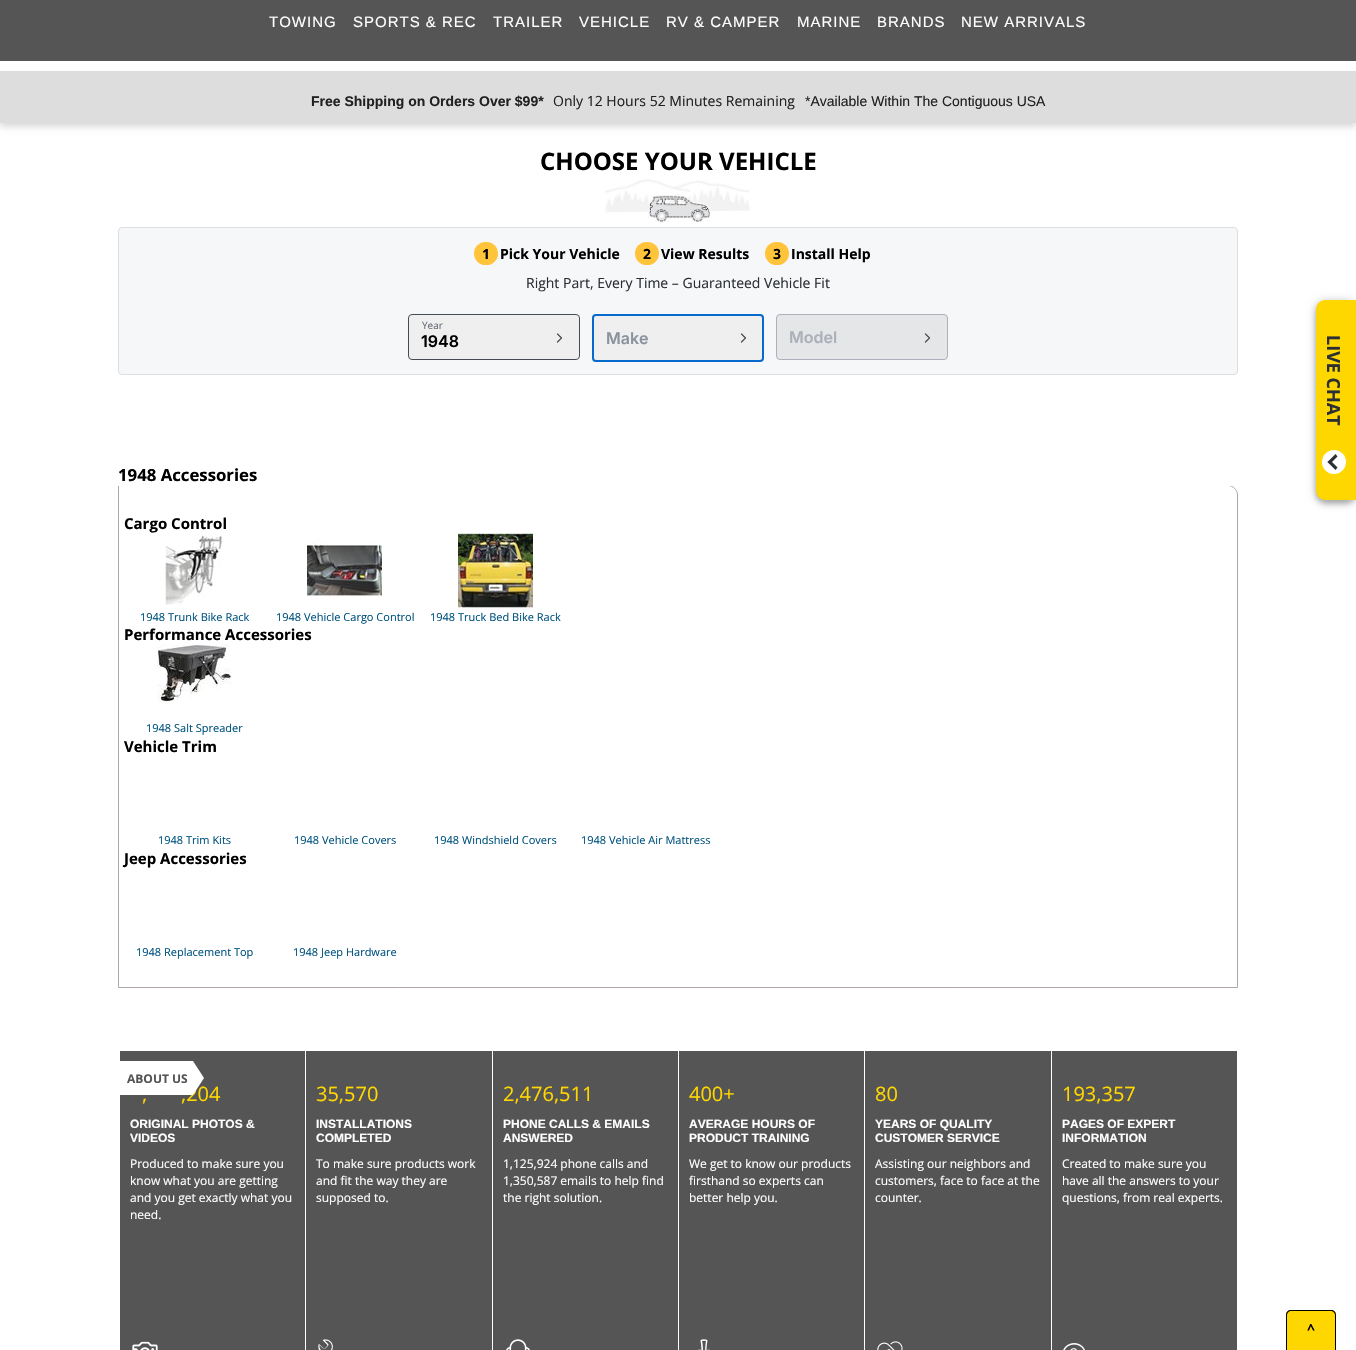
#include "include/core/SkBlurTypes.h"
#include "include/core/SkCanvas.h"
#include "include/core/SkData.h"
#include "include/core/SkFont.h"
#include "include/core/SkFontMgr.h"
#include "include/core/SkImage.h"
#include "include/core/SkMaskFilter.h"
#include "include/core/SkPaint.h"
#include "include/core/SkPathBuilder.h"
#include "include/core/SkTextBlob.h"
#include "include/effects/SkDashPathEffect.h"
#include "include/effects/SkGradientShader.h"
#include "include/utils/SkParsePath.h"

extern sk_sp<SkFontMgr> fontMgr;

void draw(SkCanvas* canvas) {
  SkPaint p;
  p.setAntiAlias(true);
  auto spacedText = [&](const char* s, float x, float y, const SkFont& font, const SkPaint& ink, float letter, float word) {
    std::vector<SkGlyphID> glyphs(font.countText(s, strlen(s), SkTextEncoding::kUTF8));
    std::vector<float> xs(glyphs.size());
    font.textToGlyphs(s, strlen(s), SkTextEncoding::kUTF8, glyphs);
    font.getXPos(glyphs, xs, x);
    float extra = 0;
    for (size_t i = 0; i < glyphs.size(); i++) {
      xs[i] += extra;
      extra += letter + word * (glyphs[i] == font.unicharToGlyph(' '));
    }
    canvas->drawTextBlob(SkTextBlob::MakeFromPosHGlyphs(glyphs, xs, y, font), 0, 0, ink);
  };
  canvas->clear(SK_ColorWHITE);
  p.setColor(SkColorSetRGB(85, 85, 85));
  canvas->drawRect(SkRect::MakeLTRB(0, 0, 1356, 61), p);
  p.setColor(SkColorSetARGB(36, 0, 0, 0));
  p.setMaskFilter(SkMaskFilter::MakeBlur(kNormal_SkBlurStyle, 3));
  canvas->drawRect(SkRect::MakeLTRB(0, 75, 1356, 127), p);
  p.setMaskFilter(nullptr);
  p.setColor(SkColorSetRGB(221, 221, 221));
  canvas->drawRect(SkRect::MakeLTRB(0, 71, 1356, 123), p);
  canvas->drawImageRect(SkImages::DeferredFromEncodedData(SkData::MakeFromFileName("images/1.png")), SkRect::MakeLTRB(605, 179, 750, 223), SkSamplingOptions());
  p.setColor(SkColorSetRGB(246, 247, 248));
  canvas->drawRoundRect(SkRect::MakeLTRB(118.5f, 227.5f, 1237.5f, 374.5f), 3.5f, 3.5f, p);
  p.setStyle(SkPaint::kStroke_Style);
  p.setStrokeWidth(1);
  p.setColor(SkColorSetRGB(220, 222, 225));
  canvas->drawRoundRect(SkRect::MakeLTRB(118.5f, 227.5f, 1237.5f, 374.5f), 3.5f, 3.5f, p);
  p.setStyle(SkPaint::kFill_Style);
  p.setColor(SkColorSetRGB(255, 196, 57));
  canvas->drawRoundRect(SkRect::MakeLTRB(474, 242, 498, 265), 11.5f, 11.5f, p);
  canvas->drawRoundRect(SkRect::MakeLTRB(635, 242, 659, 265), 11.5f, 11.5f, p);
  canvas->drawRoundRect(SkRect::MakeLTRB(765, 242, 789, 265), 11.5f, 11.5f, p);
  p.setColor(SkColorSetRGB(239, 239, 239));
  canvas->drawRoundRect(SkRect::MakeLTRB(408.5f, 314.5f, 579.5f, 359.5f), 3.5f, 3.5f, p);
  p.setStyle(SkPaint::kStroke_Style);
  p.setColor(SkColorSetRGB(71, 76, 84));
  canvas->drawRoundRect(SkRect::MakeLTRB(408.5f, 314.5f, 579.5f, 359.5f), 3.5f, 3.5f, p);
  p.setStrokeWidth(1.2f);
  p.setStrokeCap(SkPaint::kRound_Cap);
  p.setStrokeJoin(SkPaint::kRound_Join);
  canvas->drawPath(SkPathBuilder().moveTo(557.5f, 334).lineTo(561.5f, 338).lineTo(557.5f, 342).detach(), p);
  p.setStyle(SkPaint::kFill_Style);
  p.setColor(SkColorSetRGB(239, 239, 239));
  canvas->drawRoundRect(SkRect::MakeLTRB(593, 315, 763, 361), 3, 3, p);
  p.setStyle(SkPaint::kStroke_Style);
  p.setStrokeWidth(2);
  p.setStrokeCap(SkPaint::kButt_Cap);
  p.setStrokeJoin(SkPaint::kMiter_Join);
  p.setColor(SkColorSetRGB(5, 105, 205));
  canvas->drawRoundRect(SkRect::MakeLTRB(593, 315, 763, 361), 3, 3, p);
  p.setStrokeWidth(1.2f);
  p.setStrokeCap(SkPaint::kRound_Cap);
  p.setStrokeJoin(SkPaint::kRound_Join);
  p.setColor(SkColorSetRGB(71, 76, 84));
  canvas->drawPath(SkPathBuilder().moveTo(741.5f, 334).lineTo(745.5f, 338).lineTo(741.5f, 342).detach(), p);
  p.setStyle(SkPaint::kFill_Style);
  p.setColor(SkColorSetRGB(228, 230, 232));
  canvas->drawRoundRect(SkRect::MakeLTRB(776.5f, 314.5f, 947.5f, 359.5f), 3.5f, 3.5f, p);
  p.setStyle(SkPaint::kStroke_Style);
  p.setStrokeWidth(1);
  p.setStrokeCap(SkPaint::kButt_Cap);
  p.setStrokeJoin(SkPaint::kMiter_Join);
  p.setColor(SkColorSetRGB(172, 177, 185));
  canvas->drawRoundRect(SkRect::MakeLTRB(776.5f, 314.5f, 947.5f, 359.5f), 3.5f, 3.5f, p);
  p.setStrokeWidth(1.2f);
  p.setStrokeCap(SkPaint::kRound_Cap);
  p.setStrokeJoin(SkPaint::kRound_Join);
  p.setColor(SkColorSetRGB(71, 76, 84));
  canvas->drawPath(SkPathBuilder().moveTo(925.5f, 334).lineTo(929.5f, 338).lineTo(925.5f, 342).detach(), p);
  p.setStrokeWidth(1);
  p.setStrokeCap(SkPaint::kButt_Cap);
  p.setStrokeJoin(SkPaint::kMiter_Join);
  p.setColor(SkColorSetRGB(175, 167, 166));
  canvas->drawPath(SkPathBuilder().moveTo(118.5f, 485.5f).lineTo(1228, 485.5f).cubicTo(1233, 485.5f, 1237.5f, 490, 1237.5f, 495).lineTo(1237.5f, 987.5f).lineTo(118.5f, 987.5f).close().detach(), p);
  p.setStyle(SkPaint::kFill_Style);
  p.setColor(SK_ColorWHITE);
  canvas->drawRect(SkRect::MakeLTRB(118, 485, 1232, 486), p);
  canvas->drawImageRect(SkImages::DeferredFromEncodedData(SkData::MakeFromFileName("images/2.png")), SkRect::MakeLTRB(165, 534, 222, 605), SkSamplingOptions());
  canvas->drawImageRect(SkImages::DeferredFromEncodedData(SkData::MakeFromFileName("images/3.png")), SkRect::MakeLTRB(307, 541, 382, 597), SkSamplingOptions());
  canvas->drawImageRect(SkImages::DeferredFromEncodedData(SkData::MakeFromFileName("images/4.png")), SkRect::MakeLTRB(458, 533, 533, 608), SkSamplingOptions());
  canvas->drawImageRect(SkImages::DeferredFromEncodedData(SkData::MakeFromFileName("images/5.png")), SkRect::MakeLTRB(157, 644, 232, 702), SkSamplingOptions());
  p.setColor(SkColorSetRGB(85, 85, 85));
  canvas->drawRect(SkRect::MakeLTRB(120, 1051, 305, 1350), p);
  canvas->drawImageRect(SkImages::DeferredFromEncodedData(SkData::MakeFromFileName("images/6.png")), SkRect::MakeLTRB(132, 1341, 158, 1350), SkSamplingOptions());
  canvas->drawRect(SkRect::MakeLTRB(306, 1051, 492, 1350), p);
  canvas->drawImageRect(SkImages::DeferredFromEncodedData(SkData::MakeFromFileName("images/7.png")), SkRect::MakeLTRB(318, 1339, 333, 1350), SkSamplingOptions());
  canvas->drawRect(SkRect::MakeLTRB(493, 1051, 678, 1350), p);
  canvas->drawImageRect(SkImages::DeferredFromEncodedData(SkData::MakeFromFileName("images/8.png")), SkRect::MakeLTRB(506, 1339, 530, 1350), SkSamplingOptions());
  canvas->drawRect(SkRect::MakeLTRB(679, 1051, 864, 1350), p);
  canvas->drawImageRect(SkImages::DeferredFromEncodedData(SkData::MakeFromFileName("images/9.png")), SkRect::MakeLTRB(698, 1339, 710, 1350), SkSamplingOptions());
  canvas->drawRect(SkRect::MakeLTRB(865, 1051, 1051, 1350), p);
  canvas->drawImageRect(SkImages::DeferredFromEncodedData(SkData::MakeFromFileName("images/10.png")), SkRect::MakeLTRB(877, 1341, 903, 1350), SkSamplingOptions());
  canvas->drawRect(SkRect::MakeLTRB(1052, 1051, 1237, 1350), p);
  canvas->drawImageRect(SkImages::DeferredFromEncodedData(SkData::MakeFromFileName("images/11.png")), SkRect::MakeLTRB(1063, 1343, 1085, 1350), SkSamplingOptions());
  p.setColor(SkColorSetRGB(255, 215, 0));
  canvas->drawPath(SkPathBuilder().moveTo(1291, 1310).lineTo(1331, 1310).cubicTo(1334, 1310, 1336, 1312, 1336, 1315).lineTo(1336, 1350).lineTo(1286, 1350).lineTo(1286, 1315).cubicTo(1286, 1312, 1288, 1310, 1291, 1310).close().detach(), p);
  p.setColor(SK_ColorBLACK);
  canvas->drawPath(SkPathBuilder(SkPathFillType::kEvenOdd).moveTo(1291, 1310).lineTo(1331, 1310).cubicTo(1334, 1310, 1336, 1312, 1336, 1315).lineTo(1336, 1350).lineTo(1286, 1350).lineTo(1286, 1315).cubicTo(1286, 1312, 1288, 1310, 1291, 1310).close().moveTo(1291, 1311).lineTo(1331, 1311).cubicTo(1333, 1311, 1335, 1313, 1335, 1315).lineTo(1335, 1350).lineTo(1287, 1350).lineTo(1287, 1315).cubicTo(1287, 1313, 1289, 1311, 1291, 1311).close().detach(), p);
  p.setColor(SkColorSetARGB(51, 0, 0, 0));
  p.setMaskFilter(SkMaskFilter::MakeBlur(kNormal_SkBlurStyle, 5));
  canvas->drawRoundRect(SkRect::MakeLTRB(1316, 301, 1356, 501), 10, 10, p);
  p.setMaskFilter(nullptr);
  p.setColor(SkColorSetARGB(31, 0, 0, 0));
  p.setMaskFilter(SkMaskFilter::MakeBlur(kNormal_SkBlurStyle, 2.5f));
  canvas->drawRoundRect(SkRect::MakeLTRB(1316, 304, 1356, 504), 10, 10, p);
  p.setMaskFilter(nullptr);
  p.setColor(SkColorSetARGB(36, 0, 0, 0));
  p.setMaskFilter(SkMaskFilter::MakeBlur(kNormal_SkBlurStyle, 3));
  canvas->drawRoundRect(SkRect::MakeLTRB(1316, 304, 1356, 504), 10, 10, p);
  p.setMaskFilter(nullptr);
  p.setColor(SkColorSetRGB(255, 215, 0));
  canvas->drawPath(SkPathBuilder().moveTo(1356, 300).lineTo(1356, 500).lineTo(1326, 500).cubicTo(1320, 500, 1316, 496, 1316, 490).lineTo(1316, 310).cubicTo(1316, 304, 1320, 300, 1326, 300).close().detach(), p);
  p.setColor(SK_ColorWHITE);
  canvas->drawCircle(1334, 462, 12, p);
  p.setColor(SkColorSetRGB(43, 46, 51));
  canvas->drawPath(SkPathBuilder().moveTo(1335.5f, 470).lineTo(1327.5f, 462).lineTo(1330, 460).lineTo(1337.5f, 467.5f).close().detach(), p);
  canvas->drawPath(SkPathBuilder().moveTo(1330, 464).lineTo(1327.5f, 462).lineTo(1335.5f, 454).lineTo(1337.5f, 456.5f).close().detach(), p);
  SkFont font1(fontMgr->matchFamilyStyle("Liberation Sans", SkFontStyle::Normal()), 15);
  font1.setSubpixel(true);
  p.setColor(SK_ColorWHITE);
  spacedText("TOWING", 269, 27, font1, p, 1, 0);
  spacedText("SPORTS & REC", 353, 27, font1, p, 1, 0);
  spacedText("TRAILER", 493, 27, font1, p, 1, 0);
  spacedText("VEHICLE", 579, 27, font1, p, 1, 0);
  spacedText("RV & CAMPER", 666, 27, font1, p, 1, 0);
  spacedText("MARINE", 797, 27, font1, p, 1, 0);
  spacedText("BRANDS", 877, 27, font1, p, 1, 0);
  spacedText("NEW ARRIVALS", 961, 27, font1, p, 1, 0);
  SkFont font2(fontMgr->matchFamilyStyle("Liberation Sans", SkFontStyle::Bold()), 14);
  font2.setSubpixel(true);
  p.setColor(SkColorSetRGB(33, 33, 33));
  canvas->drawString("Free Shipping on Orders Over $99*", 311, 106, font2, p);
  SkFont font3(fontMgr->matchFamilyStyle("Open Sans", SkFontStyle::Normal()), 14);
  font3.setSubpixel(true);
  canvas->drawString("Only 12 Hours 52 Minutes Remaining", 553, 106, font3, p);
  SkFont font4(fontMgr->matchFamilyStyle("Liberation Sans", SkFontStyle::Normal()), 14);
  font4.setSubpixel(true);
  canvas->drawString("*Available Within The Contiguous USA", 805, 106, font4, p);
  SkFont font5(fontMgr->matchFamilyStyle("Open Sans", SkFontStyle::Bold()), 24);
  font5.setSubpixel(true);
  p.setColor(SK_ColorBLACK);
  canvas->drawString("CHOOSE YOUR VEHICLE", 540, 170, font5, p);
  SkFont font6(fontMgr->matchFamilyStyle("Open Sans", SkFontStyle::Bold()), 14);
  font6.setSubpixel(true);
  canvas->drawString("1", 482, 259, font6, p);
  canvas->drawString("Pick Your Vehicle", 500, 259, font6, p);
  canvas->drawString("2", 643, 259, font6, p);
  canvas->drawString("View Results", 661, 259, font6, p);
  canvas->drawString("3", 773, 259, font6, p);
  canvas->drawString("Install Help", 791, 259, font6, p);
  p.setColor(SkColorSetRGB(43, 46, 51));
  canvas->drawString("Right Part, Every Time – Guaranteed Vehicle Fit", 526, 288, font3, p);
  SkFont font7(fontMgr->matchFamilyStyle("Open Sans", SkFontStyle::Normal()), 10);
  font7.setSubpixel(true);
  p.setColor(SkColorSetRGB(100, 107, 118));
  canvas->drawString("Year", 422, 329, font7, p);
  SkFont font8(fontMgr->matchFamilyStyle("Inter", SkFontStyle(600, SkFontStyle::kNormal_Width, SkFontStyle::kUpright_Slant)), 16);
  font8.setSubpixel(true);
  p.setColor(SK_ColorBLACK);
  canvas->drawString("1948", 421, 347, font8, p);
  p.setColor(SkColorSetRGB(140, 147, 158));
  canvas->drawString("Make", 606, 344, font8, p);
  p.setColor(SkColorSetRGB(172, 177, 185));
  canvas->drawString("Model", 789, 343, font8, p);
  SkFont font9(fontMgr->matchFamilyStyle("Open Sans", SkFontStyle::Bold()), 16.75f);
  font9.setSubpixel(true);
  p.setColor(SK_ColorBLACK);
  canvas->drawString("1948 Accessories", 118, 481, font9, p);
  SkFont font10(fontMgr->matchFamilyStyle("Open Sans", SkFontStyle::Bold()), 15);
  font10.setSubpixel(true);
  canvas->drawString("Cargo Control", 124, 529, font10, p);
  SkFont font11(fontMgr->matchFamilyStyle("Open Sans", SkFontStyle::Normal()), 11);
  font11.setSubpixel(true);
  p.setColor(SkColorSetRGB(0, 83, 128));
  canvas->drawString("1948 Trunk Bike Rack", 140, 621, font11, p);
  canvas->drawString("1948 Vehicle Cargo Control", 276, 621, font11, p);
  canvas->drawString("1948 Truck Bed Bike Rack", 430, 621, font11, p);
  p.setColor(SK_ColorBLACK);
  canvas->drawString("Performance Accessories", 124, 640, font10, p);
  p.setColor(SkColorSetRGB(0, 83, 128));
  canvas->drawString("1948 Salt Spreader", 146, 732, font11, p);
  p.setColor(SK_ColorBLACK);
  canvas->drawString("Vehicle Trim", 124, 752, font10, p);
  p.setColor(SkColorSetRGB(0, 83, 128));
  canvas->drawString("1948 Trim Kits", 158, 844, font11, p);
  canvas->drawString("1948 Vehicle Covers", 294, 844, font11, p);
  canvas->drawString("1948 Windshield Covers", 434, 844, font11, p);
  canvas->drawString("1948 Vehicle Air Mattress", 581, 844, font11, p);
  p.setColor(SK_ColorBLACK);
  canvas->drawString("Jeep Accessories", 124, 864, font10, p);
  p.setColor(SkColorSetRGB(0, 83, 128));
  canvas->drawString("1948 Replacement Top", 136, 956, font11, p);
  canvas->drawString("1948 Jeep Hardware", 293, 956, font11, p);
  SkFont font12(fontMgr->matchFamilyStyle("Open Sans", SkFontStyle::Normal()), 20);
  font12.setSubpixel(true);
  p.setColor(SkColorSetRGB(255, 215, 0));
  canvas->drawString(",", 142, 1101, font12, p);
  canvas->drawString(",204", 181, 1101, font12, p);
  p.setColor(SK_ColorWHITE);
  canvas->drawPath(SkPathBuilder().moveTo(119, 1061).lineTo(119, 1095).lineTo(193, 1095).lineTo(204, 1078).lineTo(193, 1061).close().detach(), p);
  SkFont font13(fontMgr->matchFamilyStyle("Open Sans", SkFontStyle::Bold()), 12);
  font13.setSubpixel(true);
  p.setColor(SkColorSetRGB(85, 85, 85));
  canvas->drawString("ABOUT US", 127, 1083, font13, p);
  SkFont font14(fontMgr->matchFamilyStyle("Liberation Sans", SkFontStyle::Bold()), 12);
  font14.setSubpixel(true);
  p.setColor(SK_ColorWHITE);
  canvas->drawString("ORIGINAL PHOTOS &", 130, 1128, font14, p);
  canvas->drawString("VIDEOS", 130, 1142, font14, p);
  SkFont font15(fontMgr->matchFamilyStyle("Open Sans", SkFontStyle::Normal()), 12);
  font15.setSubpixel(true);
  canvas->drawString("Produced to make sure you", 130, 1168, font15, p);
  canvas->drawString("know what you are getting", 130, 1185, font15, p);
  canvas->drawString("and you get exactly what you", 130, 1202, font15, p);
  canvas->drawString("need.", 130, 1219, font15, p);
  p.setColor(SkColorSetRGB(255, 215, 0));
  canvas->drawString("35,570", 316, 1101, font12, p);
  p.setColor(SK_ColorWHITE);
  canvas->drawString("INSTALLATIONS", 316, 1128, font14, p);
  canvas->drawString("COMPLETED", 316, 1142, font14, p);
  canvas->drawString("To make sure products work", 316, 1168, font15, p);
  canvas->drawString("and fit the way they are", 316, 1185, font15, p);
  canvas->drawString("supposed to.", 316, 1202, font15, p);
  p.setColor(SkColorSetRGB(255, 215, 0));
  canvas->drawString("2,476,511", 503, 1101, font12, p);
  p.setColor(SK_ColorWHITE);
  canvas->drawString("PHONE CALLS & EMAILS", 503, 1128, font14, p);
  canvas->drawString("ANSWERED", 503, 1142, font14, p);
  canvas->drawString("1,125,924 phone calls and", 503, 1168, font15, p);
  canvas->drawString("1,350,587 emails to help find", 503, 1185, font15, p);
  canvas->drawString("the right solution.", 503, 1202, font15, p);
  p.setColor(SkColorSetRGB(255, 215, 0));
  canvas->drawString("400+", 689, 1101, font12, p);
  p.setColor(SK_ColorWHITE);
  canvas->drawString("AVERAGE HOURS OF", 689, 1128, font14, p);
  canvas->drawString("PRODUCT TRAINING", 689, 1142, font14, p);
  canvas->drawString("We get to know our products", 689, 1168, font15, p);
  canvas->drawString("firsthand so experts can", 689, 1185, font15, p);
  canvas->drawString("better help you.", 689, 1202, font15, p);
  p.setColor(SkColorSetRGB(255, 215, 0));
  canvas->drawString("80", 875, 1101, font12, p);
  p.setColor(SK_ColorWHITE);
  canvas->drawString("YEARS OF QUALITY", 875, 1128, font14, p);
  canvas->drawString("CUSTOMER SERVICE", 875, 1142, font14, p);
  canvas->drawString("Assisting our neighbors and", 875, 1168, font15, p);
  canvas->drawString("customers, face to face at the", 875, 1185, font15, p);
  canvas->drawString("counter.", 875, 1202, font15, p);
  p.setColor(SkColorSetRGB(255, 215, 0));
  canvas->drawString("193,357", 1062, 1101, font12, p);
  p.setColor(SK_ColorWHITE);
  canvas->drawString("PAGES OF EXPERT", 1062, 1128, font14, p);
  canvas->drawString("INFORMATION", 1062, 1142, font14, p);
  canvas->drawString("Created to make sure you", 1062, 1168, font15, p);
  canvas->drawString("have all the answers to your", 1062, 1185, font15, p);
  canvas->drawString("questions, from real experts.", 1062, 1202, font15, p);
  p.setColor(SK_ColorBLACK);
  canvas->drawString("^", 1307, 1334, font6, p);
  SkFont font16(fontMgr->matchFamilyStyle("Open Sans", SkFontStyle::Bold()), 18);
  font16.setSubpixel(true);
  p.setColor(SkColorSetRGB(43, 46, 51));
  canvas->save();
  canvas->rotate(90, 1327, 335);
  canvas->drawString("LIVE CHAT", 1327, 335, font16, p);
  canvas->restore();
}
